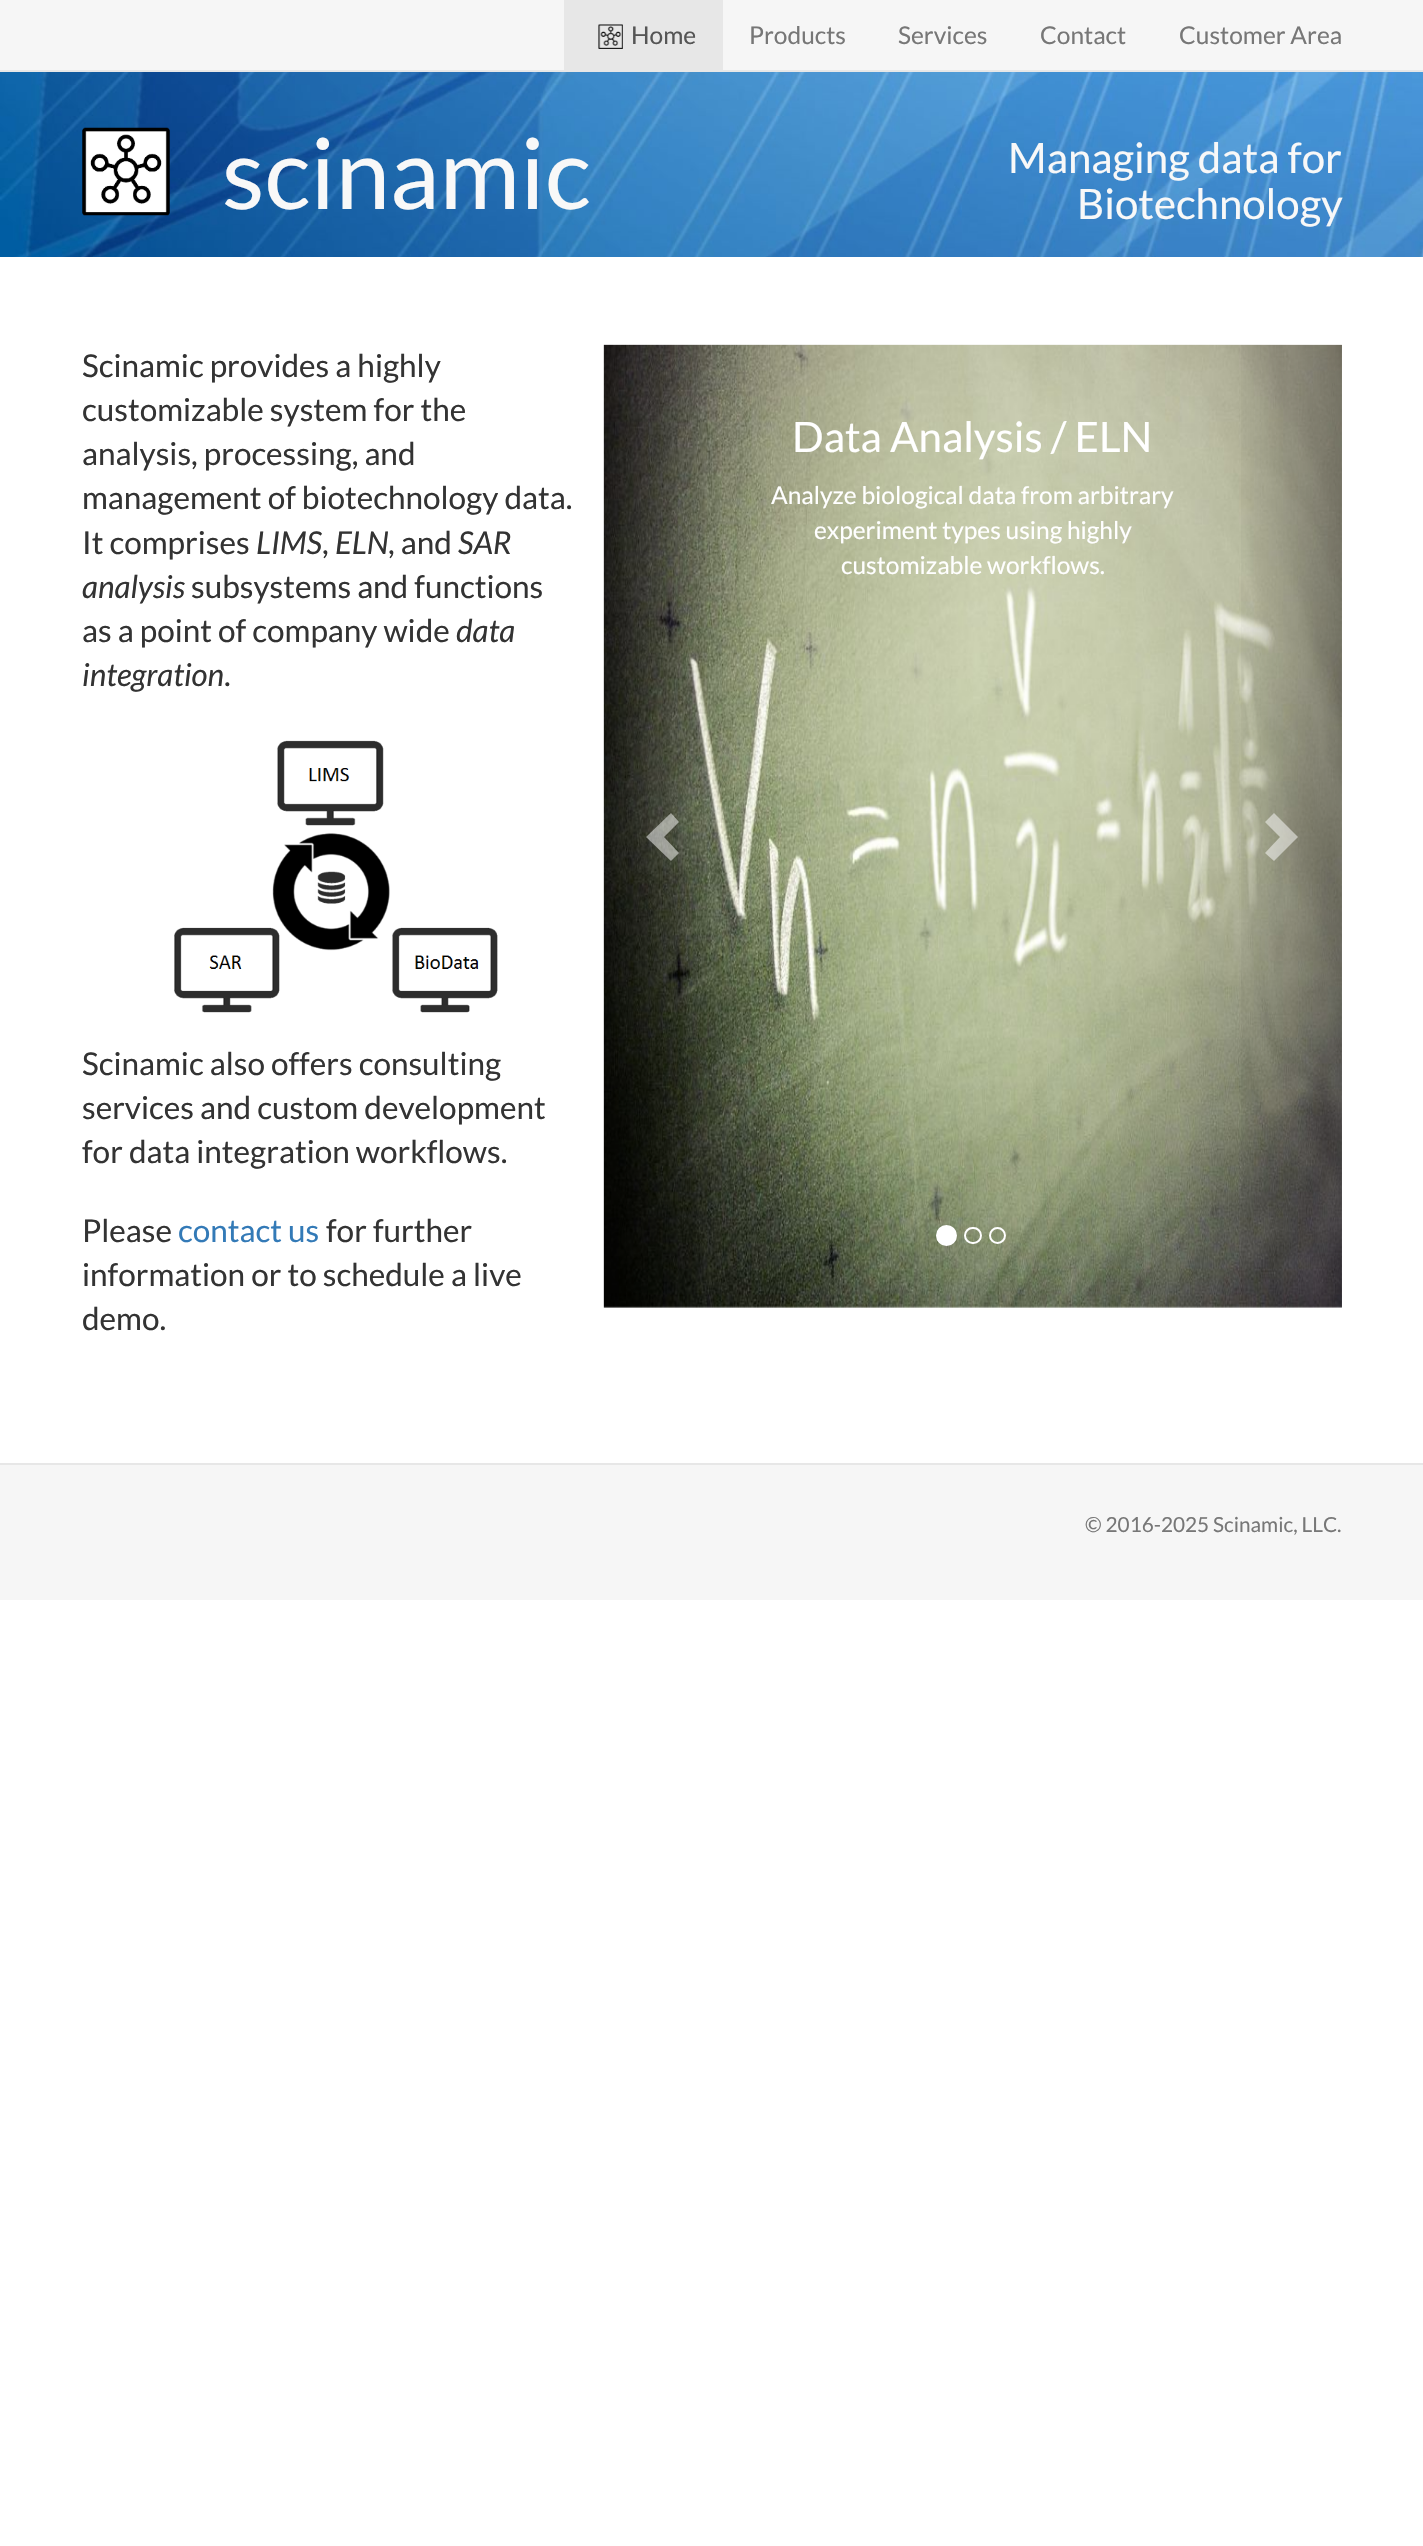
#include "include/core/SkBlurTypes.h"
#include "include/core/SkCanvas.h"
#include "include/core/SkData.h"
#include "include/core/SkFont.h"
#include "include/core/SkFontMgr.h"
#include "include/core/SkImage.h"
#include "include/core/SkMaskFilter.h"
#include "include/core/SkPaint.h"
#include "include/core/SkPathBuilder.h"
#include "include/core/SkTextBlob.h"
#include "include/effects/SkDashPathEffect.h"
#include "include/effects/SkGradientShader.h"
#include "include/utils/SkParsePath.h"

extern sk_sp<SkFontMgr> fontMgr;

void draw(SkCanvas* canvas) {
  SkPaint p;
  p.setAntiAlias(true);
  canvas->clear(SK_ColorWHITE);
  p.setColor(SkColorSetRGB(246, 246, 246));
  canvas->drawRect(SkRect::MakeLTRB(0, 0, 1423, 70), p);
  p.setColor(SkColorSetRGB(231, 231, 231));
  canvas->drawRect(SkRect::MakeLTRB(0, 70, 1423, 72), p);
  canvas->drawRect(SkRect::MakeLTRB(564, 0, 723, 70), p);
  canvas->drawImageRect(SkImages::DeferredFromEncodedData(SkData::MakeFromFileName("images/1.png")), SkRect::MakeLTRB(598, 24, 623, 49), SkSamplingOptions());
  canvas->drawImageRect(SkImages::DeferredFromEncodedData(SkData::MakeFromFileName("images/2.png")), SkRect::MakeLTRB(0, 72, 1423, 257), SkSamplingOptions());
  canvas->drawImageRect(SkImages::DeferredFromEncodedData(SkData::MakeFromFileName("images/3.png")), SkRect::MakeLTRB(82, 127, 170, 216), SkSamplingOptions());
  canvas->drawRect(SkRect::MakeLTRB(0, 1463, 1423, 1465), p);
  canvas->drawImageRect(SkImages::DeferredFromEncodedData(SkData::MakeFromFileName("images/4.png")), SkRect::MakeLTRB(174, 740, 498, 1013), SkSamplingOptions());
  canvas->drawImageRect(SkImages::DeferredFromEncodedData(SkData::MakeFromFileName("images/5.png")), SkRect::MakeLTRB(603, 344, 1342, 1308), SkSamplingOptions());
  {
    const SkColor colors[] = {SkColorSetARGB(64, 0, 0, 0), SkColorSetARGB(0, 0, 0, 0)};
    const float stops[] = {0, 1};
    const SkPoint ends[] = {{604, 826}, {714, 826}};
    p.setShader(SkGradientShader::MakeLinear(ends, colors, stops, 2, SkTileMode::kClamp));
    p.setAlpha(255);
  }
  canvas->drawRect(SkRect::MakeLTRB(604, 345, 705, 1307), p);
  p.setShader(nullptr);
  p.setColor(SkColorSetARGB(128, 255, 255, 255));
  canvas->drawPath(SkPathBuilder().moveTo(679, 822).lineTo(664, 837).lineTo(679, 853).lineTo(671, 861).lineTo(646, 837).lineTo(671, 813).close().detach(), p);
  {
    const SkColor colors[] = {SkColorSetARGB(0, 0, 0, 0), SkColorSetARGB(64, 0, 0, 0)};
    const float stops[] = {0, 1};
    const SkPoint ends[] = {{1232, 826}, {1342, 826}};
    p.setShader(SkGradientShader::MakeLinear(ends, colors, stops, 2, SkTileMode::kClamp));
    p.setAlpha(255);
  }
  canvas->drawRect(SkRect::MakeLTRB(1241, 345, 1342, 1307), p);
  p.setShader(nullptr);
  p.setColor(SkColorSetARGB(128, 255, 255, 255));
  canvas->drawPath(SkPathBuilder().moveTo(1298, 837).lineTo(1274, 861).lineTo(1265, 853).lineTo(1280, 837).lineTo(1265, 822).lineTo(1274, 813).close().detach(), p);
  p.setColor(SK_ColorWHITE);
  canvas->drawCircle(946.5f, 1235.5f, 9.5f, p);
  p.setStyle(SkPaint::kStroke_Style);
  p.setStrokeWidth(2);
  canvas->drawCircle(946.5f, 1235.5f, 9.5f, p);
  canvas->drawRoundRect(SkRect::MakeLTRB(965, 1228, 981, 1243), 7.5f, 7.5f, p);
  canvas->drawCircle(997.5f, 1235.5f, 7.5f, p);
  p.setStyle(SkPaint::kFill_Style);
  p.setColor(SkColorSetRGB(246, 246, 246));
  canvas->drawRect(SkRect::MakeLTRB(0, 1465, 1423, 1600), p);
  SkFont font1(fontMgr->matchFamilyStyle("Lato", SkFontStyle::Normal()), 24.5f);
  font1.setSubpixel(true);
  p.setColor(SkColorSetRGB(85, 85, 85));
  canvas->drawString("Home", 631, 44, font1, p);
  p.setColor(SkColorSetRGB(119, 119, 119));
  canvas->drawString("Products", 749, 44, font1, p);
  canvas->drawString("Services", 898, 44, font1, p);
  canvas->drawString("Contact", 1040, 44, font1, p);
  canvas->drawString("Customer Area", 1179, 44, font1, p);
  SkFont font2(fontMgr->matchFamilyStyle("Lato", SkFontStyle::Normal()), 98);
  font2.setSubpixel(true);
  p.setColor(SkColorSetRGB(248, 248, 248));
  canvas->drawString("scinamic", 222, 209, font2, p);
  SkFont font3(fontMgr->matchFamilyStyle("Lato", SkFontStyle::Normal()), 42);
  font3.setSubpixel(true);
  canvas->drawString("Managing data for", 1008, 173, font3, p);
  canvas->drawString("Biotechnology", 1077, 219, font3, p);
  SkFont font4(fontMgr->matchFamilyStyle("Lato", SkFontStyle::Normal()), 31.5f);
  font4.setSubpixel(true);
  p.setColor(SkColorSetRGB(51, 51, 51));
  canvas->drawString("Scinamic provides a highly", 82, 377, font4, p);
  canvas->drawString("customizable system for the", 82, 421, font4, p);
  canvas->drawString("analysis, processing, and", 82, 465, font4, p);
  canvas->drawString("management of biotechnology data.", 82, 509, font4, p);
  canvas->drawString("It comprises", 82, 554, font4, p);
  SkFont font5(fontMgr->matchFamilyStyle("Lato", SkFontStyle::Italic()), 31.5f);
  font5.setSubpixel(true);
  canvas->drawString("LIMS", 256, 554, font5, p);
  canvas->drawString(",", 322, 554, font4, p);
  canvas->drawString("ELN", 335, 554, font5, p);
  canvas->drawString(", and", 388, 554, font4, p);
  canvas->drawString("SAR", 458, 554, font5, p);
  canvas->drawString("analysis", 82, 598, font5, p);
  canvas->drawString("subsystems and functions", 191, 598, font4, p);
  canvas->drawString("as a point of company wide", 82, 642, font4, p);
  canvas->drawString("data", 456, 642, font5, p);
  canvas->drawString("integration", 82, 686, font5, p);
  canvas->drawString(".", 224, 686, font4, p);
  canvas->drawString("Scinamic also offers consulting", 82, 1075, font4, p);
  canvas->drawString("services and custom development", 82, 1119, font4, p);
  canvas->drawString("for data integration workflows.", 82, 1163, font4, p);
  canvas->drawString("Please", 82, 1242, font4, p);
  p.setColor(SkColorSetRGB(51, 122, 183));
  canvas->drawString("contact us", 178, 1242, font4, p);
  p.setColor(SkColorSetRGB(51, 51, 51));
  canvas->drawString("for further", 326, 1242, font4, p);
  canvas->drawString("information or to schedule a live", 82, 1286, font4, p);
  canvas->drawString("demo.", 82, 1330, font4, p);
  p.setColor(SK_ColorWHITE);
  canvas->drawString("Data Analysis / ELN", 792, 452, font3, p);
  canvas->drawString("Analyze biological data from arbitrary", 771, 504, font1, p);
  canvas->drawString("experiment types using highly", 814, 539, font1, p);
  canvas->drawString("customizable workflows.", 841, 574, font1, p);
  SkFont font6(fontMgr->matchFamilyStyle("Lato", SkFontStyle::Normal()), 20.75f);
  font6.setSubpixel(true);
  p.setColor(SkColorSetRGB(119, 119, 119));
  canvas->drawString("© 2016-2025 Scinamic, LLC.", 1085, 1532, font6, p);
}
